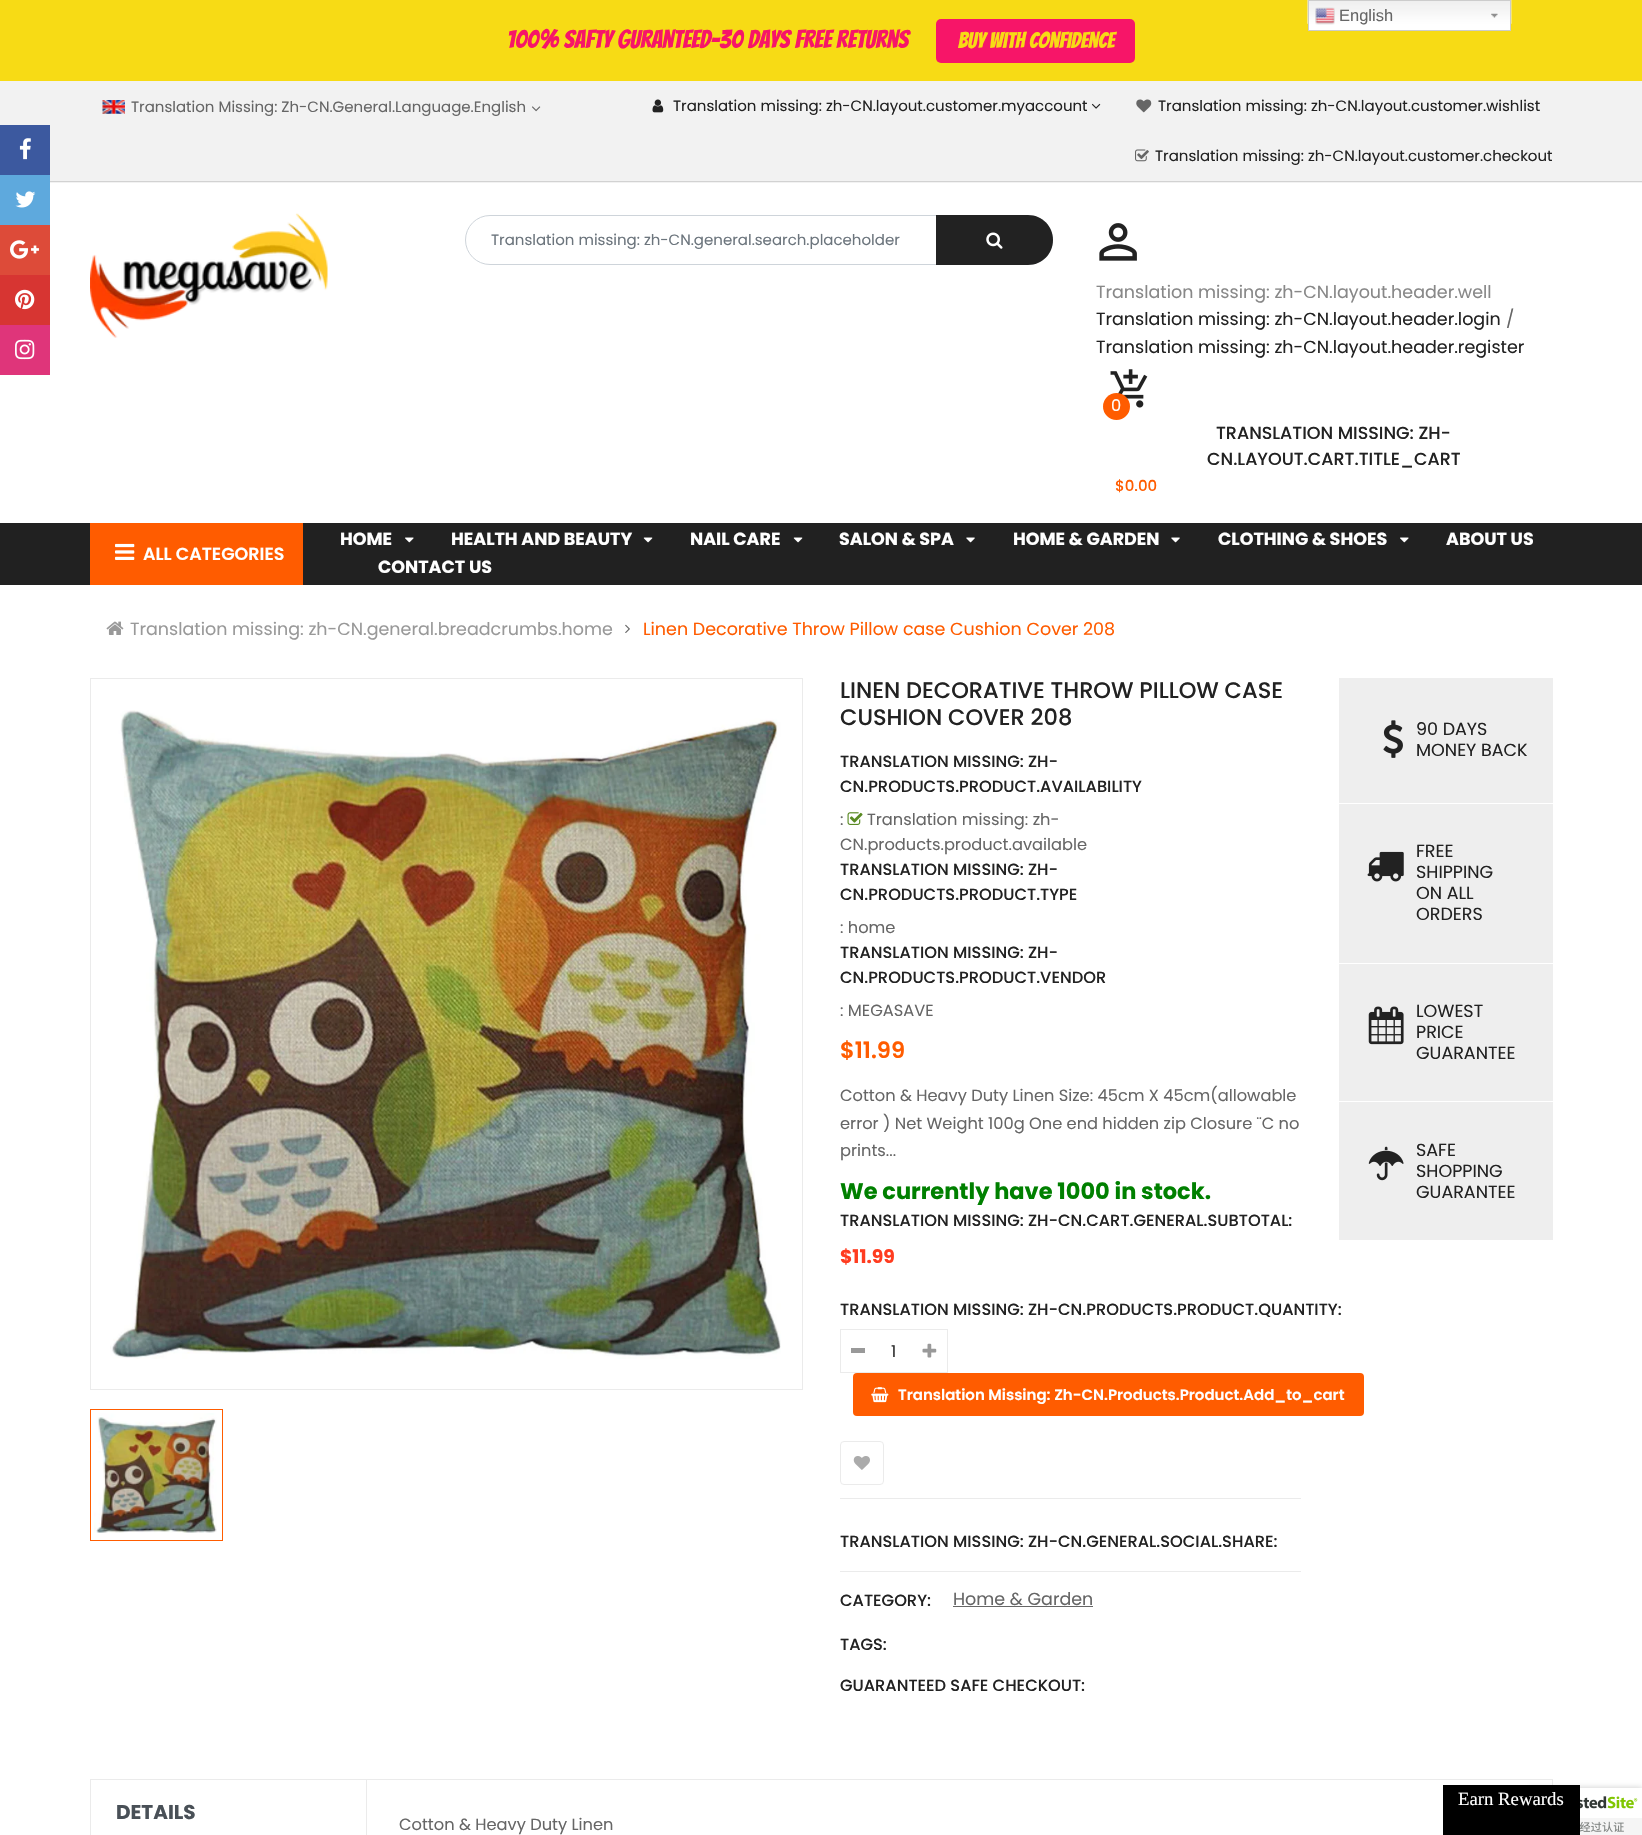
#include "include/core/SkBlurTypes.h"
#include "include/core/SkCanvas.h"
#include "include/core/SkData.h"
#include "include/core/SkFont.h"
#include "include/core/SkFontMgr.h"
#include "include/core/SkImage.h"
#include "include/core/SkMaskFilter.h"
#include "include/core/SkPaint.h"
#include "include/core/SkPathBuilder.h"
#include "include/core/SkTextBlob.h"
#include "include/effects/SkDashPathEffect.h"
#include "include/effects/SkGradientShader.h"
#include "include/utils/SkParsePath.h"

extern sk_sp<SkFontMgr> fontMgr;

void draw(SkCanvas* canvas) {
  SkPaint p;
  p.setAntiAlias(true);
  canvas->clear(SK_ColorWHITE);
  p.setColor(SkColorSetRGB(247, 219, 21));
  canvas->drawRect(SkRect::MakeLTRB(0, 0, 1642, 81), p);
  p.setColor(SK_ColorWHITE);
  canvas->drawRect(SkRect::MakeLTRB(1309, 23, 1510, 30), p);
  canvas->drawImageRect(SkImages::DeferredFromEncodedData(SkData::MakeFromFileName("images/1.png")), SkRect::MakeLTRB(1307, 0, 1512, 24), SkSamplingOptions());
  canvas->drawImageRect(SkImages::DeferredFromEncodedData(SkData::MakeFromFileName("images/2.png")), SkRect::MakeLTRB(1491, 13, 1498, 18), SkSamplingOptions());
  p.setStyle(SkPaint::kStroke_Style);
  p.setStrokeWidth(1);
  p.setColor(SkColorSetRGB(204, 204, 204));
  canvas->drawRect(SkRect::MakeLTRB(1308.5f, 0.5f, 1510.5f, 30.5f), p);
  canvas->drawImageRect(SkImages::DeferredFromEncodedData(SkData::MakeFromFileName("images/3.png")), SkRect::MakeLTRB(1315, 7, 1335, 25), SkSamplingOptions());
  p.setStyle(SkPaint::kFill_Style);
  p.setColor(SkColorSetRGB(247, 21, 104));
  canvas->drawRoundRect(SkRect::MakeLTRB(936, 19, 1135, 63), 5, 5, p);
  p.setColor(SkColorSetRGB(242, 242, 242));
  canvas->drawRect(SkRect::MakeLTRB(0, 81, 1642, 183), p);
  p.setColor(SkColorSetRGB(60, 89, 159));
  canvas->drawRect(SkRect::MakeLTRB(0, 125, 50, 175), p);
  canvas->drawImageRect(SkImages::DeferredFromEncodedData(SkData::MakeFromFileName("images/4.png")), SkRect::MakeLTRB(19, 138, 31, 160), SkSamplingOptions());
  p.setColor(SkColorSetRGB(94, 169, 221));
  canvas->drawRect(SkRect::MakeLTRB(0, 175, 50, 225), p);
  canvas->drawImageRect(SkImages::DeferredFromEncodedData(SkData::MakeFromFileName("images/5.png")), SkRect::MakeLTRB(15, 191, 36, 208), SkSamplingOptions());
  p.setColor(SkColorSetRGB(221, 75, 57));
  canvas->drawRect(SkRect::MakeLTRB(0, 225, 50, 275), p);
  canvas->drawImageRect(SkImages::DeferredFromEncodedData(SkData::MakeFromFileName("images/6.png")), SkRect::MakeLTRB(10, 240, 39, 259), SkSamplingOptions());
  p.setColor(SkColorSetRGB(215, 53, 50));
  canvas->drawRect(SkRect::MakeLTRB(0, 275, 50, 325), p);
  canvas->drawImageRect(SkImages::DeferredFromEncodedData(SkData::MakeFromFileName("images/7.png")), SkRect::MakeLTRB(15, 289, 35, 310), SkSamplingOptions());
  p.setColor(SkColorSetRGB(223, 53, 122));
  canvas->drawRect(SkRect::MakeLTRB(0, 325, 50, 375), p);
  canvas->drawImageRect(SkImages::DeferredFromEncodedData(SkData::MakeFromFileName("images/8.png")), SkRect::MakeLTRB(15, 339, 35, 360), SkSamplingOptions());
  p.setColor(SkColorSetRGB(210, 210, 210));
  canvas->drawRect(SkRect::MakeLTRB(50, 181, 1642, 182), p);
  canvas->drawImageRect(SkImages::DeferredFromEncodedData(SkData::MakeFromFileName("images/9.png")), SkRect::MakeLTRB(102, 100, 125, 114), SkSamplingOptions());
  canvas->drawImageRect(SkImages::DeferredFromEncodedData(SkData::MakeFromFileName("images/10.png")), SkRect::MakeLTRB(532, 106, 541, 112), SkSamplingOptions());
  canvas->drawImageRect(SkImages::DeferredFromEncodedData(SkData::MakeFromFileName("images/11.png")), SkRect::MakeLTRB(652, 99, 664, 113), SkSamplingOptions());
  canvas->drawImageRect(SkImages::DeferredFromEncodedData(SkData::MakeFromFileName("images/12.png")), SkRect::MakeLTRB(1091, 103, 1101, 109), SkSamplingOptions());
  canvas->drawImageRect(SkImages::DeferredFromEncodedData(SkData::MakeFromFileName("images/13.png")), SkRect::MakeLTRB(1136, 99, 1152, 113), SkSamplingOptions());
  canvas->drawImageRect(SkImages::DeferredFromEncodedData(SkData::MakeFromFileName("images/14.png")), SkRect::MakeLTRB(1135, 149, 1149, 162), SkSamplingOptions());
  canvas->drawImageRect(SkImages::DeferredFromEncodedData(SkData::MakeFromFileName("images/15.png")), SkRect::MakeLTRB(90, 213, 328, 338), SkSamplingOptions());
  p.setStyle(SkPaint::kStroke_Style);
  p.setColor(SkColorSetRGB(206, 212, 218));
  canvas->drawRoundRect(SkRect::MakeLTRB(465.5f, 215.5f, 1052.5f, 264.5f), 24.5f, 24.5f, p);
  p.setStyle(SkPaint::kFill_Style);
  p.setColor(SkColorSetRGB(34, 34, 34));
  canvas->drawPath(SkPathBuilder().moveTo(936, 215).lineTo(1028, 215).cubicTo(1042, 215, 1053, 226, 1053, 240).cubicTo(1053, 254, 1042, 265, 1028, 265).lineTo(936, 265).close().detach(), p);
  canvas->drawImageRect(SkImages::DeferredFromEncodedData(SkData::MakeFromFileName("images/16.png")), SkRect::MakeLTRB(986, 232, 1003, 249), SkSamplingOptions());
  canvas->drawImageRect(SkImages::DeferredFromEncodedData(SkData::MakeFromFileName("images/17.png")), SkRect::MakeLTRB(1099, 223, 1137, 261), SkSamplingOptions());
  canvas->drawImageRect(SkImages::DeferredFromEncodedData(SkData::MakeFromFileName("images/18.png")), SkRect::MakeLTRB(1110, 369, 1148, 408), SkSamplingOptions());
  p.setColor(SkColorSetRGB(255, 92, 0));
  canvas->drawCircle(1116.5f, 406.5f, 13.5f, p);
  p.setColor(SkColorSetRGB(33, 33, 33));
  canvas->drawRect(SkRect::MakeLTRB(0, 523, 1642, 585), p);
  p.setColor(SkColorSetRGB(255, 92, 0));
  canvas->drawRect(SkRect::MakeLTRB(90, 523, 303, 585), p);
  canvas->drawImageRect(SkImages::DeferredFromEncodedData(SkData::MakeFromFileName("images/19.png")), SkRect::MakeLTRB(115, 543, 135, 560), SkSamplingOptions());
  canvas->drawImageRect(SkImages::DeferredFromEncodedData(SkData::MakeFromFileName("images/20.png")), SkRect::MakeLTRB(405, 537, 414, 543), SkSamplingOptions());
  canvas->drawImageRect(SkImages::DeferredFromEncodedData(SkData::MakeFromFileName("images/21.png")), SkRect::MakeLTRB(643, 537, 653, 543), SkSamplingOptions());
  canvas->drawImageRect(SkImages::DeferredFromEncodedData(SkData::MakeFromFileName("images/21.png")), SkRect::MakeLTRB(793, 537, 803, 543), SkSamplingOptions());
  canvas->drawImageRect(SkImages::DeferredFromEncodedData(SkData::MakeFromFileName("images/22.png")), SkRect::MakeLTRB(966, 537, 975, 543), SkSamplingOptions());
  canvas->drawImageRect(SkImages::DeferredFromEncodedData(SkData::MakeFromFileName("images/22.png")), SkRect::MakeLTRB(1171, 537, 1180, 543), SkSamplingOptions());
  canvas->drawImageRect(SkImages::DeferredFromEncodedData(SkData::MakeFromFileName("images/20.png")), SkRect::MakeLTRB(1400, 537, 1409, 543), SkSamplingOptions());
  canvas->drawImageRect(SkImages::DeferredFromEncodedData(SkData::MakeFromFileName("images/23.png")), SkRect::MakeLTRB(106, 621, 124, 635), SkSamplingOptions());
  canvas->drawImageRect(SkImages::DeferredFromEncodedData(SkData::MakeFromFileName("images/24.png")), SkRect::MakeLTRB(625, 624, 630, 633), SkSamplingOptions());
  p.setStyle(SkPaint::kStroke_Style);
  p.setColor(SkColorSetRGB(235, 235, 235));
  canvas->drawRect(SkRect::MakeLTRB(90.5f, 678.5f, 802.5f, 1389.5f), p);
  canvas->drawImageRect(SkImages::DeferredFromEncodedData(SkData::MakeFromFileName("images/25.png")), SkRect::MakeLTRB(110, 710, 781, 1359), SkSamplingOptions());
  p.setColor(SkColorSetRGB(255, 92, 0));
  canvas->drawRect(SkRect::MakeLTRB(90.5f, 1409.5f, 222.5f, 1540.5f), p);
  canvas->drawImageRect(SkImages::DeferredFromEncodedData(SkData::MakeFromFileName("images/26.png")), SkRect::MakeLTRB(94, 1413, 217, 1533), SkSamplingOptions());
  canvas->drawImageRect(SkImages::DeferredFromEncodedData(SkData::MakeFromFileName("images/27.png")), SkRect::MakeLTRB(847, 812, 863, 825), SkSamplingOptions());
  p.setColor(SkColorSetRGB(235, 235, 235));
  canvas->drawRect(SkRect::MakeLTRB(840.5f, 1329.5f, 947.5f, 1372.5f), p);
  p.setStyle(SkPaint::kFill_Style);
  p.setColor(SkColorSetRGB(153, 153, 153));
  canvas->drawRect(SkRect::MakeLTRB(851, 1348, 865, 1353), p);
  canvas->drawImageRect(SkImages::DeferredFromEncodedData(SkData::MakeFromFileName("images/28.png")), SkRect::MakeLTRB(922, 1343, 937, 1358), SkSamplingOptions());
  p.setColor(SkColorSetRGB(255, 92, 0));
  canvas->drawRoundRect(SkRect::MakeLTRB(853, 1373, 1364, 1416), 4, 4, p);
  canvas->drawImageRect(SkImages::DeferredFromEncodedData(SkData::MakeFromFileName("images/29.png")), SkRect::MakeLTRB(871, 1387, 889, 1403), SkSamplingOptions());
  p.setStyle(SkPaint::kStroke_Style);
  p.setColor(SkColorSetRGB(235, 235, 235));
  canvas->drawRoundRect(SkRect::MakeLTRB(840.5f, 1441.5f, 883.5f, 1484.5f), 3.5f, 3.5f, p);
  canvas->drawImageRect(SkImages::DeferredFromEncodedData(SkData::MakeFromFileName("images/30.png")), SkRect::MakeLTRB(853, 1456, 870, 1470), SkSamplingOptions());
  p.setStyle(SkPaint::kFill_Style);
  canvas->drawRect(SkRect::MakeLTRB(840, 1498, 1301, 1499), p);
  canvas->drawRect(SkRect::MakeLTRB(840, 1571, 1301, 1572), p);
  p.setColor(SkColorSetRGB(102, 102, 102));
  canvas->drawRect(SkRect::MakeLTRB(953, 1606, 1093, 1607), p);
  p.setColor(SkColorSetRGB(238, 238, 238));
  canvas->drawRect(SkRect::MakeLTRB(1339, 678, 1553, 1240), p);
  p.setColor(SK_ColorWHITE);
  canvas->drawRect(SkRect::MakeLTRB(1339, 803, 1553, 804), p);
  canvas->drawImageRect(SkImages::DeferredFromEncodedData(SkData::MakeFromFileName("images/31.png")), SkRect::MakeLTRB(1383, 720, 1403, 758), SkSamplingOptions());
  canvas->drawRect(SkRect::MakeLTRB(1339, 963, 1553, 964), p);
  canvas->drawImageRect(SkImages::DeferredFromEncodedData(SkData::MakeFromFileName("images/32.png")), SkRect::MakeLTRB(1367, 851, 1404, 882), SkSamplingOptions());
  canvas->drawRect(SkRect::MakeLTRB(1339, 1101, 1553, 1102), p);
  canvas->drawImageRect(SkImages::DeferredFromEncodedData(SkData::MakeFromFileName("images/33.png")), SkRect::MakeLTRB(1368, 1006, 1404, 1045), SkSamplingOptions());
  canvas->drawImageRect(SkImages::DeferredFromEncodedData(SkData::MakeFromFileName("images/34.png")), SkRect::MakeLTRB(1368, 1146, 1404, 1181), SkSamplingOptions());
  p.setStyle(SkPaint::kStroke_Style);
  p.setColor(SkColorSetRGB(235, 235, 235));
  canvas->drawRect(SkRect::MakeLTRB(90.5f, 1779.5f, 1552.5f, 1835.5f), p);
  p.setStyle(SkPaint::kFill_Style);
  canvas->drawRect(SkRect::MakeLTRB(366, 1780, 367, 1835), p);
  p.setColor(SkColorSetARGB(51, 0, 0, 0));
  p.setMaskFilter(SkMaskFilter::MakeBlur(kNormal_SkBlurStyle, 3));
  canvas->drawRoundRect(SkRect::MakeLTRB(1528, 1788, 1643, 1835), 2.5f, 2.5f, p);
  p.setMaskFilter(nullptr);
  p.setColor(SK_ColorWHITE);
  canvas->drawRect(SkRect::MakeLTRB(1580, 1788, 1642, 1794), p);
  canvas->drawImageRect(SkImages::DeferredFromEncodedData(SkData::MakeFromFileName("images/35.png")), SkRect::MakeLTRB(1580, 1794, 1642, 1835), SkSamplingOptions());
  p.setColor(SK_ColorBLACK);
  canvas->drawRect(SkRect::MakeLTRB(1443, 1785, 1580, 1835), p);
  SkFont font1(fontMgr->matchFamilyStyle("Liberation Sans", SkFontStyle::Normal()), 16.5f);
  font1.setSubpixel(true);
  p.setColor(SkColorSetRGB(102, 102, 102));
  canvas->drawString("English", 1339, 21, font1, p);
  SkFont font2(fontMgr->matchFamilyStyle("Bangers", SkFontStyle::Normal()), 25);
  font2.setSubpixel(true);
  p.setColor(SkColorSetRGB(247, 21, 104));
  canvas->drawString("100% Safty Guranteed-30 days free returns", 507, 48, font2, p);
  SkFont font3(fontMgr->matchFamilyStyle("Bangers", SkFontStyle::Normal()), 22);
  font3.setSubpixel(true);
  p.setColor(SkColorSetRGB(247, 219, 21));
  canvas->drawString("Buy with confidence", 958, 48, font3, p);
  SkFont font4(fontMgr->matchFamilyStyle("Poppins", SkFontStyle::Normal()), 15);
  font4.setSubpixel(true);
  p.setColor(SkColorSetRGB(102, 102, 102));
  canvas->drawString("Translation Missing: Zh-CN.General.Language.English", 131, 112, font4, p);
  p.setColor(SkColorSetRGB(34, 34, 34));
  canvas->drawString("Translation missing: zh-CN.layout.customer.myaccount", 673, 111, font4, p);
  canvas->drawString("Translation missing: zh-CN.layout.customer.wishlist", 1158, 111, font4, p);
  canvas->drawString("Translation missing: zh-CN.layout.customer.checkout", 1155, 161, font4, p);
  p.setColor(SkColorSetRGB(108, 117, 125));
  canvas->drawString("Translation missing: zh-CN.general.search.placeholder", 491, 245, font4, p);
  SkFont font5(fontMgr->matchFamilyStyle("Poppins", SkFontStyle::Normal()), 17.5f);
  font5.setSubpixel(true);
  p.setColor(SkColorSetRGB(136, 136, 136));
  canvas->drawString("Translation missing: zh-CN.layout.header.well", 1096, 298, font5, p);
  p.setColor(SkColorSetRGB(34, 34, 34));
  canvas->drawString("Translation missing: zh-CN.layout.header.login", 1096, 325, font5, p);
  p.setColor(SkColorSetRGB(102, 102, 102));
  canvas->drawString("/", 1506, 325, font5, p);
  p.setColor(SkColorSetRGB(34, 34, 34));
  canvas->drawString("Translation missing: zh-CN.layout.header.register", 1096, 353, font5, p);
  SkFont font6(fontMgr->matchFamilyStyle("Poppins", SkFontStyle::Normal()), 16.25f);
  font6.setSubpixel(true);
  p.setColor(SK_ColorWHITE);
  canvas->drawString("0", 1111, 411, font6, p);
  SkFont font7(fontMgr->matchFamilyStyle("Poppins", SkFontStyle(500, SkFontStyle::kNormal_Width, SkFontStyle::kUpright_Slant)), 17.5f);
  font7.setSubpixel(true);
  p.setColor(SkColorSetRGB(34, 34, 34));
  canvas->drawString("TRANSLATION MISSING: ZH-", 1216, 439, font7, p);
  canvas->drawString("CN.LAYOUT.CART.TITLE_CART", 1207, 465, font7, p);
  SkFont font8(fontMgr->matchFamilyStyle("Poppins", SkFontStyle(500, SkFontStyle::kNormal_Width, SkFontStyle::kUpright_Slant)), 15);
  font8.setSubpixel(true);
  p.setColor(SkColorSetRGB(255, 92, 0));
  canvas->drawString("$0.00", 1115, 491, font8, p);
  SkFont font9(fontMgr->matchFamilyStyle("Poppins", SkFontStyle(600, SkFontStyle::kNormal_Width, SkFontStyle::kUpright_Slant)), 17.5f);
  font9.setSubpixel(true);
  p.setColor(SK_ColorWHITE);
  canvas->drawString("ALL CATEGORIES", 143, 560, font9, p);
  SkFont font10(fontMgr->matchFamilyStyle("Poppins", SkFontStyle::Bold()), 17.5f);
  font10.setSubpixel(true);
  canvas->drawString("HOME", 340, 545, font10, p);
  canvas->drawString("HEALTH AND BEAUTY", 451, 545, font10, p);
  canvas->drawString("NAIL CARE", 690, 545, font10, p);
  canvas->drawString("SALON & SPA", 839, 545, font10, p);
  canvas->drawString("HOME & GARDEN", 1013, 545, font10, p);
  canvas->drawString("CLOTHING & SHOES", 1218, 545, font10, p);
  canvas->drawString("ABOUT US", 1446, 545, font10, p);
  canvas->drawString("CONTACT US", 378, 573, font10, p);
  p.setColor(SkColorSetRGB(153, 153, 153));
  canvas->drawString("Translation missing: zh-CN.general.breadcrumbs.home", 130, 635, font5, p);
  p.setColor(SkColorSetRGB(255, 92, 0));
  canvas->drawString("Linen Decorative Throw Pillow case Cushion Cover 208", 643, 635, font5, p);
  SkFont font11(fontMgr->matchFamilyStyle("Poppins", SkFontStyle(500, SkFontStyle::kNormal_Width, SkFontStyle::kUpright_Slant)), 22.5f);
  font11.setSubpixel(true);
  p.setColor(SkColorSetRGB(34, 34, 34));
  canvas->drawString("LINEN DECORATIVE THROW PILLOW CASE", 840, 698, font11, p);
  canvas->drawString("CUSHION COVER 208", 840, 725, font11, p);
  SkFont font12(fontMgr->matchFamilyStyle("Poppins", SkFontStyle(500, SkFontStyle::kNormal_Width, SkFontStyle::kUpright_Slant)), 16.25f);
  font12.setSubpixel(true);
  canvas->drawString("TRANSLATION MISSING: ZH-", 840, 767, font12, p);
  canvas->drawString("CN.PRODUCTS.PRODUCT.AVAILABILITY", 840, 792, font12, p);
  p.setColor(SkColorSetRGB(102, 102, 102));
  canvas->drawString(":", 840, 825, font6, p);
  canvas->drawString("Translation missing: zh-", 867, 825, font6, p);
  canvas->drawString("CN.products.product.available", 840, 850, font6, p);
  p.setColor(SkColorSetRGB(34, 34, 34));
  canvas->drawString("TRANSLATION MISSING: ZH-", 840, 875, font12, p);
  canvas->drawString("CN.PRODUCTS.PRODUCT.TYPE", 840, 900, font12, p);
  p.setColor(SkColorSetRGB(102, 102, 102));
  canvas->drawString(": home", 840, 933, font6, p);
  p.setColor(SkColorSetRGB(34, 34, 34));
  canvas->drawString("TRANSLATION MISSING: ZH-", 840, 958, font12, p);
  canvas->drawString("CN.PRODUCTS.PRODUCT.VENDOR", 840, 983, font12, p);
  p.setColor(SkColorSetRGB(102, 102, 102));
  canvas->drawString(": MEGASAVE", 840, 1016, font6, p);
  SkFont font13(fontMgr->matchFamilyStyle("Poppins", SkFontStyle(600, SkFontStyle::kNormal_Width, SkFontStyle::kUpright_Slant)), 22.5f);
  font13.setSubpixel(true);
  p.setColor(SkColorSetRGB(255, 92, 0));
  canvas->drawString("$11.99", 840, 1058, font13, p);
  p.setColor(SkColorSetRGB(102, 102, 102));
  canvas->drawString("Cotton & Heavy Duty Linen Size: 45cm X 45cm(allowable", 840, 1101, font6, p);
  canvas->drawString("error ) Net Weight 100g One end hidden zip Closure ¨C no", 840, 1129, font6, p);
  canvas->drawString("prints...", 840, 1156, font6, p);
  SkFont font14(fontMgr->matchFamilyStyle("Poppins", SkFontStyle::Bold()), 22.5f);
  font14.setSubpixel(true);
  p.setColor(SkColorSetRGB(0, 128, 0));
  canvas->drawString("We currently have 1000 in stock.", 840, 1199, font14, p);
  p.setColor(SkColorSetRGB(34, 34, 34));
  canvas->drawString("TRANSLATION MISSING: ZH-CN.CART.GENERAL.SUBTOTAL:", 840, 1226, font12, p);
  SkFont font15(fontMgr->matchFamilyStyle("Poppins", SkFontStyle::Bold()), 18.75f);
  font15.setSubpixel(true);
  p.setColor(SkColorSetRGB(255, 60, 32));
  canvas->drawString("$11.99", 840, 1263, font15, p);
  p.setColor(SkColorSetRGB(34, 34, 34));
  canvas->drawString("TRANSLATION MISSING: ZH-CN.PRODUCTS.PRODUCT.QUANTITY:", 840, 1315, font12, p);
  p.setColor(SkColorSetRGB(50, 50, 50));
  canvas->drawString("1", 891, 1357, font6, p);
  SkFont font16(fontMgr->matchFamilyStyle("Poppins", SkFontStyle(600, SkFontStyle::kNormal_Width, SkFontStyle::kUpright_Slant)), 15);
  font16.setSubpixel(true);
  p.setColor(SK_ColorWHITE);
  canvas->drawString("Translation Missing: Zh-CN.Products.Product.Add_to_cart", 898, 1400, font16, p);
  p.setColor(SkColorSetRGB(34, 34, 34));
  canvas->drawString("TRANSLATION MISSING: ZH-CN.GENERAL.SOCIAL.SHARE:", 840, 1547, font12, p);
  canvas->drawString("CATEGORY:", 840, 1606, font12, p);
  p.setColor(SkColorSetRGB(102, 102, 102));
  canvas->drawString("Home & Garden", 953, 1605, font5, p);
  p.setColor(SkColorSetRGB(34, 34, 34));
  canvas->drawString("TAGS:", 840, 1650, font12, p);
  canvas->drawString("GUARANTEED SAFE CHECKOUT:", 840, 1691, font12, p);
  canvas->drawString("90 DAYS", 1416, 735, font5, p);
  canvas->drawString("MONEY BACK", 1416, 756, font5, p);
  canvas->drawString("FREE", 1416, 857, font5, p);
  canvas->drawString("SHIPPING", 1416, 878, font5, p);
  canvas->drawString("ON ALL", 1416, 899, font5, p);
  canvas->drawString("ORDERS", 1416, 920, font5, p);
  canvas->drawString("LOWEST", 1416, 1017, font5, p);
  canvas->drawString("PRICE", 1416, 1038, font5, p);
  canvas->drawString("GUARANTEE", 1416, 1059, font5, p);
  canvas->drawString("SAFE", 1416, 1156, font5, p);
  canvas->drawString("SHOPPING", 1416, 1177, font5, p);
  canvas->drawString("GUARANTEE", 1416, 1198, font5, p);
  SkFont font17(fontMgr->matchFamilyStyle("Poppins", SkFontStyle::Bold()), 20);
  font17.setSubpixel(true);
  p.setColor(SkColorSetRGB(73, 80, 87));
  canvas->drawString("DETAILS", 116, 1819, font17, p);
  p.setColor(SkColorSetRGB(102, 102, 102));
  canvas->drawString("Cotton & Heavy Duty Linen", 399, 1830, font6, p);
  SkFont font18(fontMgr->matchFamilyStyle("Liberation Serif", SkFontStyle::Normal()), 18.75f);
  font18.setSubpixel(true);
  p.setColor(SK_ColorWHITE);
  canvas->drawString("Earn Rewards", 1458, 1805, font18, p);
}
